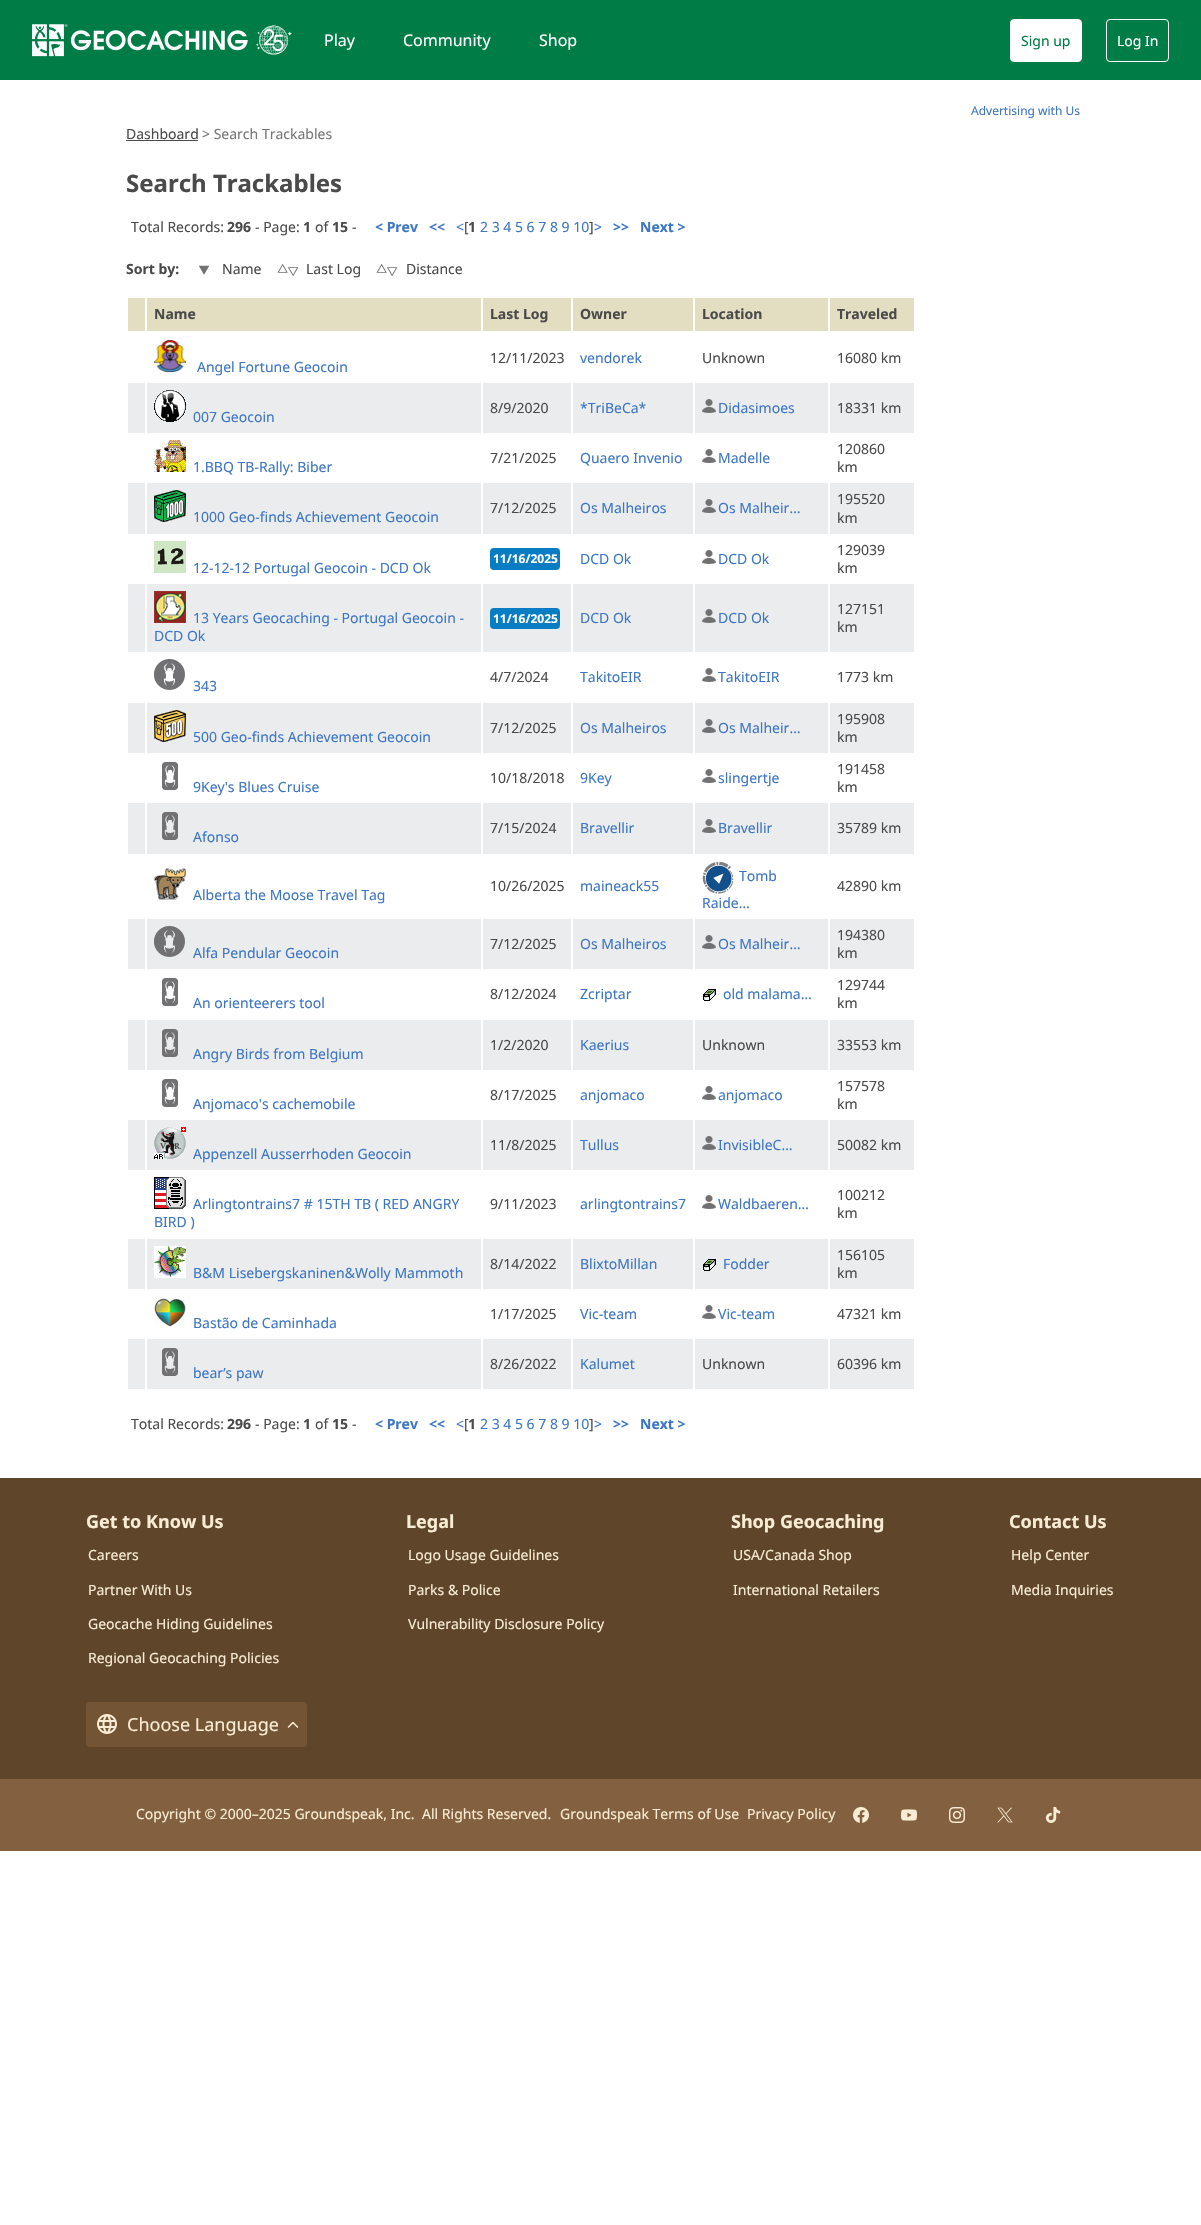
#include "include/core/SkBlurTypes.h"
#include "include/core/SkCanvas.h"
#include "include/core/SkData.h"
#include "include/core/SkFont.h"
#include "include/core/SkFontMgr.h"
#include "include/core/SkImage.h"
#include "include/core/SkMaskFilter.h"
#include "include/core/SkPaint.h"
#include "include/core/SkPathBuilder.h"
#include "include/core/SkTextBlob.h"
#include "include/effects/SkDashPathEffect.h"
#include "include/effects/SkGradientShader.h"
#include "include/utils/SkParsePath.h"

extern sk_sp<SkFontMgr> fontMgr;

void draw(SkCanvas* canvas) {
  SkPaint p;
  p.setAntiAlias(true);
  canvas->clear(SK_ColorWHITE);
  p.setColor(SkColorSetRGB(0, 125, 70));
  canvas->drawRect(SkRect::MakeLTRB(0, 0, 1201, 80), p);
  canvas->drawImageRect(SkImages::DeferredFromEncodedData(SkData::MakeFromFileName("images/1.png")), SkRect::MakeLTRB(32, 24, 248, 57), SkSamplingOptions());
  canvas->drawImageRect(SkImages::DeferredFromEncodedData(SkData::MakeFromFileName("images/2.png")), SkRect::MakeLTRB(256, 25, 292, 55), SkSamplingOptions());
  p.setColor(SK_ColorWHITE);
  canvas->drawRoundRect(SkRect::MakeLTRB(1010.5f, 19.5f, 1081.5f, 61.5f), 3.5f, 3.5f, p);
  p.setStyle(SkPaint::kStroke_Style);
  p.setStrokeWidth(1);
  canvas->drawRoundRect(SkRect::MakeLTRB(1010.5f, 19.5f, 1081.5f, 61.5f), 3.5f, 3.5f, p);
  canvas->drawRoundRect(SkRect::MakeLTRB(1106.5f, 19.5f, 1168.5f, 61.5f), 3.5f, 3.5f, p);
  p.setStyle(SkPaint::kFill_Style);
  p.setColor(SkColorSetRGB(74, 74, 74));
  canvas->drawRect(SkRect::MakeLTRB(126, 140, 198, 141), p);
  canvas->drawImageRect(SkImages::DeferredFromEncodedData(SkData::MakeFromFileName("images/3.png")), SkRect::MakeLTRB(199, 265, 210, 275), SkSamplingOptions());
  canvas->drawImageRect(SkImages::DeferredFromEncodedData(SkData::MakeFromFileName("images/4.png")), SkRect::MakeLTRB(277, 264, 299, 276), SkSamplingOptions());
  canvas->drawImageRect(SkImages::DeferredFromEncodedData(SkData::MakeFromFileName("images/4.png")), SkRect::MakeLTRB(376, 264, 398, 276), SkSamplingOptions());
  p.setColor(SkColorSetRGB(227, 221, 194));
  canvas->drawRect(SkRect::MakeLTRB(128, 298, 145, 331), p);
  canvas->drawRect(SkRect::MakeLTRB(147, 298, 481, 331), p);
  canvas->drawRect(SkRect::MakeLTRB(483, 298, 571, 331), p);
  canvas->drawRect(SkRect::MakeLTRB(573, 298, 693, 331), p);
  canvas->drawRect(SkRect::MakeLTRB(695, 298, 828, 331), p);
  canvas->drawRect(SkRect::MakeLTRB(830, 298, 914, 331), p);
  canvas->drawImageRect(SkImages::DeferredFromEncodedData(SkData::MakeFromFileName("images/5.png")), SkRect::MakeLTRB(154, 340, 186, 372), SkSamplingOptions());
  p.setColor(SkColorSetRGB(235, 236, 237));
  canvas->drawRect(SkRect::MakeLTRB(128, 383, 914, 433), p);
  canvas->drawImageRect(SkImages::DeferredFromEncodedData(SkData::MakeFromFileName("images/6.png")), SkRect::MakeLTRB(702, 399, 716, 413), SkSamplingOptions());
  canvas->drawImageRect(SkImages::DeferredFromEncodedData(SkData::MakeFromFileName("images/7.png")), SkRect::MakeLTRB(154, 390, 186, 422), SkSamplingOptions());
  p.setColor(SK_ColorWHITE);
  canvas->drawRect(SkRect::MakeLTRB(481, 382, 483, 434), p);
  canvas->drawRect(SkRect::MakeLTRB(571, 382, 573, 434), p);
  canvas->drawRect(SkRect::MakeLTRB(693, 382, 695, 434), p);
  canvas->drawImageRect(SkImages::DeferredFromEncodedData(SkData::MakeFromFileName("images/8.png")), SkRect::MakeLTRB(702, 449, 716, 463), SkSamplingOptions());
  canvas->drawRect(SkRect::MakeLTRB(828, 382, 830, 434), p);
  canvas->drawRect(SkRect::MakeLTRB(145, 382, 147, 434), p);
  canvas->drawImageRect(SkImages::DeferredFromEncodedData(SkData::MakeFromFileName("images/9.png")), SkRect::MakeLTRB(154, 440, 186, 472), SkSamplingOptions());
  p.setColor(SkColorSetRGB(235, 236, 237));
  canvas->drawRect(SkRect::MakeLTRB(128, 483, 914, 534), p);
  canvas->drawImageRect(SkImages::DeferredFromEncodedData(SkData::MakeFromFileName("images/6.png")), SkRect::MakeLTRB(702, 499, 716, 513), SkSamplingOptions());
  canvas->drawImageRect(SkImages::DeferredFromEncodedData(SkData::MakeFromFileName("images/10.png")), SkRect::MakeLTRB(154, 490, 186, 522), SkSamplingOptions());
  p.setColor(SK_ColorWHITE);
  canvas->drawRect(SkRect::MakeLTRB(481, 482, 483, 535), p);
  p.setColor(SkColorSetRGB(9, 125, 195));
  canvas->drawRoundRect(SkRect::MakeLTRB(490, 548, 560, 570), 4, 4, p);
  p.setColor(SK_ColorWHITE);
  canvas->drawRect(SkRect::MakeLTRB(571, 482, 573, 535), p);
  canvas->drawRect(SkRect::MakeLTRB(693, 482, 695, 535), p);
  canvas->drawImageRect(SkImages::DeferredFromEncodedData(SkData::MakeFromFileName("images/8.png")), SkRect::MakeLTRB(702, 550, 716, 564), SkSamplingOptions());
  canvas->drawRect(SkRect::MakeLTRB(828, 482, 830, 535), p);
  canvas->drawRect(SkRect::MakeLTRB(145, 482, 147, 535), p);
  canvas->drawImageRect(SkImages::DeferredFromEncodedData(SkData::MakeFromFileName("images/11.png")), SkRect::MakeLTRB(154, 541, 186, 573), SkSamplingOptions());
  p.setColor(SkColorSetRGB(235, 236, 237));
  canvas->drawRect(SkRect::MakeLTRB(128, 584, 914, 652), p);
  canvas->drawImageRect(SkImages::DeferredFromEncodedData(SkData::MakeFromFileName("images/12.png")), SkRect::MakeLTRB(154, 591, 186, 623), SkSamplingOptions());
  p.setColor(SkColorSetRGB(9, 125, 195));
  canvas->drawRoundRect(SkRect::MakeLTRB(490, 608, 560, 629), 4, 4, p);
  canvas->drawImageRect(SkImages::DeferredFromEncodedData(SkData::MakeFromFileName("images/6.png")), SkRect::MakeLTRB(702, 609, 716, 623), SkSamplingOptions());
  p.setColor(SK_ColorWHITE);
  canvas->drawRect(SkRect::MakeLTRB(481, 583, 483, 653), p);
  canvas->drawRect(SkRect::MakeLTRB(571, 583, 573, 653), p);
  canvas->drawRect(SkRect::MakeLTRB(693, 583, 695, 653), p);
  canvas->drawImageRect(SkImages::DeferredFromEncodedData(SkData::MakeFromFileName("images/8.png")), SkRect::MakeLTRB(702, 668, 716, 682), SkSamplingOptions());
  canvas->drawRect(SkRect::MakeLTRB(828, 583, 830, 653), p);
  canvas->drawRect(SkRect::MakeLTRB(145, 583, 147, 653), p);
  canvas->drawImageRect(SkImages::DeferredFromEncodedData(SkData::MakeFromFileName("images/13.png")), SkRect::MakeLTRB(154, 659, 185, 690), SkSamplingOptions());
  p.setColor(SkColorSetRGB(235, 236, 237));
  canvas->drawRect(SkRect::MakeLTRB(128, 703, 914, 753), p);
  canvas->drawImageRect(SkImages::DeferredFromEncodedData(SkData::MakeFromFileName("images/6.png")), SkRect::MakeLTRB(702, 719, 716, 733), SkSamplingOptions());
  canvas->drawImageRect(SkImages::DeferredFromEncodedData(SkData::MakeFromFileName("images/14.png")), SkRect::MakeLTRB(154, 710, 186, 742), SkSamplingOptions());
  p.setColor(SK_ColorWHITE);
  canvas->drawRect(SkRect::MakeLTRB(481, 702, 483, 754), p);
  canvas->drawRect(SkRect::MakeLTRB(571, 702, 573, 754), p);
  canvas->drawRect(SkRect::MakeLTRB(693, 702, 695, 754), p);
  canvas->drawImageRect(SkImages::DeferredFromEncodedData(SkData::MakeFromFileName("images/8.png")), SkRect::MakeLTRB(702, 769, 716, 783), SkSamplingOptions());
  canvas->drawRect(SkRect::MakeLTRB(828, 702, 830, 754), p);
  canvas->drawRect(SkRect::MakeLTRB(145, 702, 147, 754), p);
  canvas->drawImageRect(SkImages::DeferredFromEncodedData(SkData::MakeFromFileName("images/15.png")), SkRect::MakeLTRB(162, 762, 178, 790), SkSamplingOptions());
  p.setColor(SkColorSetRGB(235, 236, 237));
  canvas->drawRect(SkRect::MakeLTRB(128, 803, 914, 854), p);
  canvas->drawImageRect(SkImages::DeferredFromEncodedData(SkData::MakeFromFileName("images/6.png")), SkRect::MakeLTRB(702, 819, 716, 833), SkSamplingOptions());
  canvas->drawImageRect(SkImages::DeferredFromEncodedData(SkData::MakeFromFileName("images/16.png")), SkRect::MakeLTRB(162, 812, 178, 840), SkSamplingOptions());
  p.setColor(SK_ColorWHITE);
  canvas->drawRect(SkRect::MakeLTRB(481, 802, 483, 855), p);
  canvas->drawRect(SkRect::MakeLTRB(571, 802, 573, 855), p);
  canvas->drawRect(SkRect::MakeLTRB(693, 802, 695, 855), p);
  canvas->drawImageRect(SkImages::DeferredFromEncodedData(SkData::MakeFromFileName("images/17.png")), SkRect::MakeLTRB(702, 861, 734, 894), SkSamplingOptions());
  canvas->drawRect(SkRect::MakeLTRB(828, 802, 830, 855), p);
  canvas->drawRect(SkRect::MakeLTRB(145, 802, 147, 855), p);
  canvas->drawImageRect(SkImages::DeferredFromEncodedData(SkData::MakeFromFileName("images/18.png")), SkRect::MakeLTRB(154, 868, 186, 900), SkSamplingOptions());
  p.setColor(SkColorSetRGB(235, 236, 237));
  canvas->drawRect(SkRect::MakeLTRB(128, 919, 914, 969), p);
  canvas->drawImageRect(SkImages::DeferredFromEncodedData(SkData::MakeFromFileName("images/6.png")), SkRect::MakeLTRB(702, 935, 716, 949), SkSamplingOptions());
  canvas->drawImageRect(SkImages::DeferredFromEncodedData(SkData::MakeFromFileName("images/19.png")), SkRect::MakeLTRB(154, 926, 185, 957), SkSamplingOptions());
  p.setColor(SK_ColorWHITE);
  canvas->drawRect(SkRect::MakeLTRB(481, 918, 483, 970), p);
  canvas->drawRect(SkRect::MakeLTRB(571, 918, 573, 970), p);
  canvas->drawRect(SkRect::MakeLTRB(693, 918, 695, 970), p);
  canvas->drawImageRect(SkImages::DeferredFromEncodedData(SkData::MakeFromFileName("images/20.png")), SkRect::MakeLTRB(703, 989, 716, 1001), SkSamplingOptions());
  canvas->drawRect(SkRect::MakeLTRB(828, 918, 830, 970), p);
  canvas->drawRect(SkRect::MakeLTRB(145, 918, 147, 970), p);
  canvas->drawImageRect(SkImages::DeferredFromEncodedData(SkData::MakeFromFileName("images/15.png")), SkRect::MakeLTRB(162, 978, 178, 1006), SkSamplingOptions());
  p.setColor(SkColorSetRGB(235, 236, 237));
  canvas->drawRect(SkRect::MakeLTRB(128, 1020, 914, 1070), p);
  canvas->drawImageRect(SkImages::DeferredFromEncodedData(SkData::MakeFromFileName("images/16.png")), SkRect::MakeLTRB(162, 1029, 178, 1057), SkSamplingOptions());
  p.setColor(SK_ColorWHITE);
  canvas->drawRect(SkRect::MakeLTRB(481, 1019, 483, 1071), p);
  canvas->drawRect(SkRect::MakeLTRB(571, 1019, 573, 1071), p);
  canvas->drawRect(SkRect::MakeLTRB(693, 1019, 695, 1071), p);
  canvas->drawImageRect(SkImages::DeferredFromEncodedData(SkData::MakeFromFileName("images/8.png")), SkRect::MakeLTRB(702, 1086, 716, 1100), SkSamplingOptions());
  canvas->drawRect(SkRect::MakeLTRB(828, 1019, 830, 1071), p);
  canvas->drawRect(SkRect::MakeLTRB(145, 1019, 147, 1071), p);
  canvas->drawImageRect(SkImages::DeferredFromEncodedData(SkData::MakeFromFileName("images/15.png")), SkRect::MakeLTRB(162, 1079, 178, 1107), SkSamplingOptions());
  p.setColor(SkColorSetRGB(235, 236, 237));
  canvas->drawRect(SkRect::MakeLTRB(128, 1120, 914, 1170), p);
  canvas->drawImageRect(SkImages::DeferredFromEncodedData(SkData::MakeFromFileName("images/6.png")), SkRect::MakeLTRB(702, 1136, 716, 1150), SkSamplingOptions());
  canvas->drawImageRect(SkImages::DeferredFromEncodedData(SkData::MakeFromFileName("images/21.png")), SkRect::MakeLTRB(154, 1127, 186, 1159), SkSamplingOptions());
  p.setColor(SK_ColorWHITE);
  canvas->drawRect(SkRect::MakeLTRB(145, 1119, 147, 1171), p);
  canvas->drawImageRect(SkImages::DeferredFromEncodedData(SkData::MakeFromFileName("images/22.png")), SkRect::MakeLTRB(154, 1177, 186, 1209), SkSamplingOptions());
  canvas->drawRect(SkRect::MakeLTRB(481, 1119, 483, 1171), p);
  canvas->drawRect(SkRect::MakeLTRB(571, 1119, 573, 1171), p);
  canvas->drawRect(SkRect::MakeLTRB(693, 1119, 695, 1171), p);
  canvas->drawImageRect(SkImages::DeferredFromEncodedData(SkData::MakeFromFileName("images/8.png")), SkRect::MakeLTRB(702, 1195, 716, 1209), SkSamplingOptions());
  canvas->drawRect(SkRect::MakeLTRB(828, 1119, 830, 1171), p);
  p.setColor(SkColorSetRGB(235, 236, 237));
  canvas->drawRect(SkRect::MakeLTRB(128, 1239, 914, 1289), p);
  canvas->drawImageRect(SkImages::DeferredFromEncodedData(SkData::MakeFromFileName("images/23.png")), SkRect::MakeLTRB(703, 1259, 716, 1271), SkSamplingOptions());
  canvas->drawImageRect(SkImages::DeferredFromEncodedData(SkData::MakeFromFileName("images/24.png")), SkRect::MakeLTRB(154, 1246, 186, 1278), SkSamplingOptions());
  p.setColor(SK_ColorWHITE);
  canvas->drawRect(SkRect::MakeLTRB(481, 1238, 483, 1290), p);
  canvas->drawRect(SkRect::MakeLTRB(571, 1238, 573, 1290), p);
  canvas->drawRect(SkRect::MakeLTRB(693, 1238, 695, 1290), p);
  canvas->drawImageRect(SkImages::DeferredFromEncodedData(SkData::MakeFromFileName("images/8.png")), SkRect::MakeLTRB(702, 1305, 716, 1319), SkSamplingOptions());
  canvas->drawRect(SkRect::MakeLTRB(828, 1238, 830, 1290), p);
  canvas->drawRect(SkRect::MakeLTRB(145, 1238, 147, 1290), p);
  canvas->drawImageRect(SkImages::DeferredFromEncodedData(SkData::MakeFromFileName("images/25.png")), SkRect::MakeLTRB(154, 1298, 186, 1327), SkSamplingOptions());
  p.setColor(SkColorSetRGB(235, 236, 237));
  canvas->drawRect(SkRect::MakeLTRB(128, 1339, 914, 1389), p);
  p.setColor(SK_ColorWHITE);
  canvas->drawRect(SkRect::MakeLTRB(481, 1338, 483, 1391), p);
  canvas->drawRect(SkRect::MakeLTRB(571, 1338, 573, 1391), p);
  canvas->drawRect(SkRect::MakeLTRB(693, 1338, 695, 1391), p);
  canvas->drawRect(SkRect::MakeLTRB(828, 1338, 830, 1391), p);
  canvas->drawRect(SkRect::MakeLTRB(145, 1338, 147, 1391), p);
  canvas->drawImageRect(SkImages::DeferredFromEncodedData(SkData::MakeFromFileName("images/16.png")), SkRect::MakeLTRB(162, 1348, 178, 1376), SkSamplingOptions());
  p.setColor(SkColorSetRGB(95, 69, 42));
  canvas->drawRect(SkRect::MakeLTRB(0, 1478, 1201, 1779), p);
  p.setColor(SkColorSetRGB(115, 85, 54));
  canvas->drawRoundRect(SkRect::MakeLTRB(86, 1702, 307, 1747), 4, 4, p);
  canvas->drawImageRect(SkImages::DeferredFromEncodedData(SkData::MakeFromFileName("images/26.png")), SkRect::MakeLTRB(97, 1714, 117, 1734), SkSamplingOptions());
  p.setStyle(SkPaint::kStroke_Style);
  p.setStrokeWidth(1.5f);
  p.setStrokeCap(SkPaint::kRound_Cap);
  p.setStrokeJoin(SkPaint::kRound_Join);
  p.setColor(SkColorSetRGB(248, 237, 212));
  canvas->drawPath(SkPathBuilder().moveTo(297.5f, 1727).lineTo(293, 1722.5f).lineTo(288.5f, 1727).detach(), p);
  p.setStyle(SkPaint::kFill_Style);
  p.setColor(SkColorSetRGB(131, 96, 63));
  canvas->drawRect(SkRect::MakeLTRB(0, 1779, 1201, 1851), p);
  canvas->drawImageRect(SkImages::DeferredFromEncodedData(SkData::MakeFromFileName("images/27.png")), SkRect::MakeLTRB(853, 1807, 869, 1823), SkSamplingOptions());
  canvas->drawImageRect(SkImages::DeferredFromEncodedData(SkData::MakeFromFileName("images/28.png")), SkRect::MakeLTRB(901, 1809, 917, 1821), SkSamplingOptions());
  canvas->drawImageRect(SkImages::DeferredFromEncodedData(SkData::MakeFromFileName("images/29.png")), SkRect::MakeLTRB(949, 1807, 965, 1823), SkSamplingOptions());
  canvas->drawImageRect(SkImages::DeferredFromEncodedData(SkData::MakeFromFileName("images/30.png")), SkRect::MakeLTRB(997, 1807, 1013, 1823), SkSamplingOptions());
  canvas->drawImageRect(SkImages::DeferredFromEncodedData(SkData::MakeFromFileName("images/31.png")), SkRect::MakeLTRB(1045, 1807, 1061, 1823), SkSamplingOptions());
  SkFont font1(fontMgr->matchFamilyStyle("Noto Sans", SkFontStyle::Normal()), 16);
  font1.setSubpixel(true);
  p.setColor(SK_ColorWHITE);
  canvas->drawString("Play", 324, 46, font1, p);
  canvas->drawString("Community", 403, 46, font1, p);
  canvas->drawString("Shop", 539, 46, font1, p);
  SkFont font2(fontMgr->matchFamilyStyle("Noto Sans", SkFontStyle::Normal()), 14);
  font2.setSubpixel(true);
  p.setColor(SkColorSetRGB(0, 125, 70));
  canvas->drawString("Sign up", 1021, 46, font2, p);
  p.setColor(SK_ColorWHITE);
  canvas->drawString("Log In", 1117, 46, font2, p);
  SkFont font3(fontMgr->matchFamilyStyle("Noto Sans", SkFontStyle::Normal()), 12);
  font3.setSubpixel(true);
  p.setColor(SkColorSetRGB(61, 118, 197));
  canvas->drawString("Advertising with Us", 971, 115, font3, p);
  p.setColor(SkColorSetRGB(74, 74, 74));
  canvas->drawString("Dashboard", 126, 139, font2, p);
  p.setColor(SkColorSetRGB(119, 119, 119));
  canvas->drawString("> Search Trackables", 202, 139, font2, p);
  SkFont font4(fontMgr->matchFamilyStyle("Noto Sans", SkFontStyle::Bold()), 24);
  font4.setSubpixel(true);
  p.setColor(SkColorSetRGB(74, 74, 74));
  canvas->drawString("Search Trackables", 126, 192, font4, p);
  canvas->drawString("Total Records:", 131, 232, font2, p);
  SkFont font5(fontMgr->matchFamilyStyle("Noto Sans", SkFontStyle::Bold()), 14);
  font5.setSubpixel(true);
  canvas->drawString("296", 227, 232, font5, p);
  canvas->drawString("- Page:", 255, 232, font2, p);
  canvas->drawString("1", 303, 232, font5, p);
  canvas->drawString("of", 315, 232, font2, p);
  canvas->drawString("15", 332, 232, font5, p);
  canvas->drawString("-", 352, 232, font2, p);
  p.setColor(SkColorSetRGB(61, 118, 197));
  canvas->drawString("< Prev", 375, 232, font5, p);
  canvas->drawString("<<", 429, 232, font5, p);
  canvas->drawString("<", 456, 232, font2, p);
  p.setColor(SkColorSetRGB(74, 74, 74));
  canvas->drawString("[", 464, 232, font2, p);
  canvas->drawString("1", 468, 232, font5, p);
  p.setColor(SkColorSetRGB(61, 118, 197));
  canvas->drawString("2 3 4 5 6 7 8 9 10", 480, 232, font2, p);
  p.setColor(SkColorSetRGB(74, 74, 74));
  canvas->drawString("]", 589, 232, font2, p);
  p.setColor(SkColorSetRGB(61, 118, 197));
  canvas->drawString(">", 594, 232, font2, p);
  canvas->drawString(">>", 613, 232, font5, p);
  canvas->drawString("Next >", 640, 232, font5, p);
  p.setColor(SkColorSetRGB(74, 74, 74));
  canvas->drawString("Sort by:", 126, 274, font5, p);
  canvas->drawString("Name", 222, 274, font2, p);
  canvas->drawString("Last Log", 306, 274, font2, p);
  canvas->drawString("Distance", 406, 274, font2, p);
  canvas->drawString("Name", 154, 319, font5, p);
  canvas->drawString("Last Log", 490, 319, font5, p);
  canvas->drawString("Owner", 580, 319, font5, p);
  canvas->drawString("Location", 702, 319, font5, p);
  canvas->drawString("Traveled", 837, 319, font5, p);
  canvas->drawString("12/11/2023", 490, 363, font2, p);
  p.setColor(SkColorSetRGB(61, 118, 197));
  canvas->drawString("vendorek", 580, 363, font2, p);
  p.setColor(SkColorSetRGB(74, 74, 74));
  canvas->drawString("Unknown", 702, 363, font2, p);
  canvas->drawString("16080 km", 837, 363, font2, p);
  p.setColor(SkColorSetRGB(61, 118, 197));
  canvas->drawString("Angel Fortune Geocoin", 197, 372, font2, p);
  p.setColor(SkColorSetRGB(74, 74, 74));
  canvas->drawString("8/9/2020", 490, 413, font2, p);
  p.setColor(SkColorSetRGB(61, 118, 197));
  canvas->drawString("*TriBeCa*", 580, 413, font2, p);
  canvas->drawString("Didasimoes", 718, 413, font2, p);
  p.setColor(SkColorSetRGB(74, 74, 74));
  canvas->drawString("18331 km", 837, 413, font2, p);
  p.setColor(SkColorSetRGB(61, 118, 197));
  canvas->drawString("007 Geocoin", 193, 422, font2, p);
  p.setColor(SkColorSetRGB(74, 74, 74));
  canvas->drawString("7/21/2025", 490, 463, font2, p);
  p.setColor(SkColorSetRGB(61, 118, 197));
  canvas->drawString("Quaero Invenio", 580, 463, font2, p);
  canvas->drawString("Madelle", 718, 463, font2, p);
  p.setColor(SkColorSetRGB(74, 74, 74));
  canvas->drawString("120860", 837, 454, font2, p);
  canvas->drawString("km", 837, 472, font2, p);
  p.setColor(SkColorSetRGB(61, 118, 197));
  canvas->drawString("1.BBQ TB-Rally: Biber", 193, 472, font2, p);
  p.setColor(SkColorSetRGB(74, 74, 74));
  canvas->drawString("7/12/2025", 490, 513, font2, p);
  p.setColor(SkColorSetRGB(61, 118, 197));
  canvas->drawString("Os Malheiros", 580, 513, font2, p);
  canvas->drawString("Os Malheir…", 718, 513, font2, p);
  p.setColor(SkColorSetRGB(74, 74, 74));
  canvas->drawString("195520", 837, 504, font2, p);
  canvas->drawString("km", 837, 523, font2, p);
  p.setColor(SkColorSetRGB(61, 118, 197));
  canvas->drawString("1000 Geo-finds Achievement Geocoin", 193, 522, font2, p);
  SkFont font6(fontMgr->matchFamilyStyle("Noto Sans", SkFontStyle::Bold()), 12);
  font6.setSubpixel(true);
  p.setColor(SK_ColorWHITE);
  canvas->drawString("11/16/2025", 493, 563, font6, p);
  p.setColor(SkColorSetRGB(61, 118, 197));
  canvas->drawString("DCD Ok", 580, 564, font2, p);
  canvas->drawString("DCD Ok", 718, 564, font2, p);
  p.setColor(SkColorSetRGB(74, 74, 74));
  canvas->drawString("129039", 837, 555, font2, p);
  canvas->drawString("km", 837, 573, font2, p);
  p.setColor(SkColorSetRGB(61, 118, 197));
  canvas->drawString("12-12-12 Portugal Geocoin - DCD Ok", 193, 573, font2, p);
  canvas->drawString("13 Years Geocaching - Portugal Geocoin -", 193, 623, font2, p);
  canvas->drawString("DCD Ok", 154, 641, font2, p);
  p.setColor(SK_ColorWHITE);
  canvas->drawString("11/16/2025", 493, 623, font6, p);
  p.setColor(SkColorSetRGB(61, 118, 197));
  canvas->drawString("DCD Ok", 580, 623, font2, p);
  canvas->drawString("DCD Ok", 718, 623, font2, p);
  p.setColor(SkColorSetRGB(74, 74, 74));
  canvas->drawString("127151", 837, 614, font2, p);
  canvas->drawString("km", 837, 632, font2, p);
  canvas->drawString("4/7/2024", 490, 682, font2, p);
  p.setColor(SkColorSetRGB(61, 118, 197));
  canvas->drawString("TakitoEIR", 580, 682, font2, p);
  canvas->drawString("TakitoEIR", 718, 682, font2, p);
  p.setColor(SkColorSetRGB(74, 74, 74));
  canvas->drawString("1773 km", 837, 682, font2, p);
  p.setColor(SkColorSetRGB(61, 118, 197));
  canvas->drawString("343", 193, 691, font2, p);
  p.setColor(SkColorSetRGB(74, 74, 74));
  canvas->drawString("7/12/2025", 490, 733, font2, p);
  p.setColor(SkColorSetRGB(61, 118, 197));
  canvas->drawString("Os Malheiros", 580, 733, font2, p);
  canvas->drawString("Os Malheir…", 718, 733, font2, p);
  p.setColor(SkColorSetRGB(74, 74, 74));
  canvas->drawString("195908", 837, 724, font2, p);
  canvas->drawString("km", 837, 742, font2, p);
  p.setColor(SkColorSetRGB(61, 118, 197));
  canvas->drawString("500 Geo-finds Achievement Geocoin", 193, 742, font2, p);
  p.setColor(SkColorSetRGB(74, 74, 74));
  canvas->drawString("10/18/2018", 490, 783, font2, p);
  p.setColor(SkColorSetRGB(61, 118, 197));
  canvas->drawString("9Key", 580, 783, font2, p);
  canvas->drawString("slingertje", 718, 783, font2, p);
  p.setColor(SkColorSetRGB(74, 74, 74));
  canvas->drawString("191458", 837, 774, font2, p);
  canvas->drawString("km", 837, 792, font2, p);
  p.setColor(SkColorSetRGB(61, 118, 197));
  canvas->drawString("9Key's Blues Cruise", 193, 792, font2, p);
  p.setColor(SkColorSetRGB(74, 74, 74));
  canvas->drawString("7/15/2024", 490, 833, font2, p);
  p.setColor(SkColorSetRGB(61, 118, 197));
  canvas->drawString("Bravellir", 580, 833, font2, p);
  canvas->drawString("Bravellir", 718, 833, font2, p);
  p.setColor(SkColorSetRGB(74, 74, 74));
  canvas->drawString("35789 km", 837, 833, font2, p);
  p.setColor(SkColorSetRGB(61, 118, 197));
  canvas->drawString("Afonso", 193, 842, font2, p);
  p.setColor(SkColorSetRGB(74, 74, 74));
  canvas->drawString("10/26/2025", 490, 891, font2, p);
  p.setColor(SkColorSetRGB(61, 118, 197));
  canvas->drawString("maineack55", 580, 891, font2, p);
  canvas->drawString("Tomb", 739, 881, font2, p);
  canvas->drawString("Raide…", 702, 908, font2, p);
  p.setColor(SkColorSetRGB(74, 74, 74));
  canvas->drawString("42890 km", 837, 891, font2, p);
  p.setColor(SkColorSetRGB(61, 118, 197));
  canvas->drawString("Alberta the Moose Travel Tag", 193, 900, font2, p);
  p.setColor(SkColorSetRGB(74, 74, 74));
  canvas->drawString("7/12/2025", 490, 949, font2, p);
  p.setColor(SkColorSetRGB(61, 118, 197));
  canvas->drawString("Os Malheiros", 580, 949, font2, p);
  canvas->drawString("Os Malheir…", 718, 949, font2, p);
  p.setColor(SkColorSetRGB(74, 74, 74));
  canvas->drawString("194380", 837, 940, font2, p);
  canvas->drawString("km", 837, 958, font2, p);
  p.setColor(SkColorSetRGB(61, 118, 197));
  canvas->drawString("Alfa Pendular Geocoin", 193, 958, font2, p);
  p.setColor(SkColorSetRGB(74, 74, 74));
  canvas->drawString("8/12/2024", 490, 999, font2, p);
  p.setColor(SkColorSetRGB(61, 118, 197));
  canvas->drawString("Zcriptar", 580, 999, font2, p);
  canvas->drawString("old malama…", 723, 999, font2, p);
  p.setColor(SkColorSetRGB(74, 74, 74));
  canvas->drawString("129744", 837, 990, font2, p);
  canvas->drawString("km", 837, 1008, font2, p);
  p.setColor(SkColorSetRGB(61, 118, 197));
  canvas->drawString("An orienteerers tool", 193, 1008, font2, p);
  p.setColor(SkColorSetRGB(74, 74, 74));
  canvas->drawString("1/2/2020", 490, 1050, font2, p);
  p.setColor(SkColorSetRGB(61, 118, 197));
  canvas->drawString("Kaerius", 580, 1050, font2, p);
  p.setColor(SkColorSetRGB(74, 74, 74));
  canvas->drawString("Unknown", 702, 1050, font2, p);
  canvas->drawString("33553 km", 837, 1050, font2, p);
  p.setColor(SkColorSetRGB(61, 118, 197));
  canvas->drawString("Angry Birds from Belgium", 193, 1059, font2, p);
  p.setColor(SkColorSetRGB(74, 74, 74));
  canvas->drawString("8/17/2025", 490, 1100, font2, p);
  p.setColor(SkColorSetRGB(61, 118, 197));
  canvas->drawString("anjomaco", 580, 1100, font2, p);
  canvas->drawString("anjomaco", 718, 1100, font2, p);
  p.setColor(SkColorSetRGB(74, 74, 74));
  canvas->drawString("157578", 837, 1091, font2, p);
  canvas->drawString("km", 837, 1109, font2, p);
  p.setColor(SkColorSetRGB(61, 118, 197));
  canvas->drawString("Anjomaco's cachemobile", 193, 1109, font2, p);
  p.setColor(SkColorSetRGB(74, 74, 74));
  canvas->drawString("11/8/2025", 490, 1150, font2, p);
  p.setColor(SkColorSetRGB(61, 118, 197));
  canvas->drawString("Tullus", 580, 1150, font2, p);
  canvas->drawString("InvisibleC…", 718, 1150, font2, p);
  p.setColor(SkColorSetRGB(74, 74, 74));
  canvas->drawString("50082 km", 837, 1150, font2, p);
  p.setColor(SkColorSetRGB(61, 118, 197));
  canvas->drawString("Appenzell Ausserrhoden Geocoin", 193, 1159, font2, p);
  canvas->drawString("Arlingtontrains7 # 15TH TB ( RED ANGRY", 193, 1209, font2, p);
  canvas->drawString("BIRD )", 154, 1227, font2, p);
  p.setColor(SkColorSetRGB(74, 74, 74));
  canvas->drawString("9/11/2023", 490, 1209, font2, p);
  p.setColor(SkColorSetRGB(61, 118, 197));
  canvas->drawString("arlingtontrains7", 580, 1209, font2, p);
  canvas->drawString("Waldbaeren…", 718, 1209, font2, p);
  p.setColor(SkColorSetRGB(74, 74, 74));
  canvas->drawString("100212", 837, 1200, font2, p);
  canvas->drawString("km", 837, 1218, font2, p);
  canvas->drawString("8/14/2022", 490, 1269, font2, p);
  p.setColor(SkColorSetRGB(61, 118, 197));
  canvas->drawString("BlixtoMillan", 580, 1269, font2, p);
  canvas->drawString("Fodder", 723, 1269, font2, p);
  p.setColor(SkColorSetRGB(74, 74, 74));
  canvas->drawString("156105", 837, 1260, font2, p);
  canvas->drawString("km", 837, 1278, font2, p);
  p.setColor(SkColorSetRGB(61, 118, 197));
  canvas->drawString("B&M Lisebergskaninen&Wolly Mammoth", 193, 1278, font2, p);
  p.setColor(SkColorSetRGB(74, 74, 74));
  canvas->drawString("1/17/2025", 490, 1319, font2, p);
  p.setColor(SkColorSetRGB(61, 118, 197));
  canvas->drawString("Vic-team", 580, 1319, font2, p);
  canvas->drawString("Vic-team", 718, 1319, font2, p);
  p.setColor(SkColorSetRGB(74, 74, 74));
  canvas->drawString("47321 km", 837, 1319, font2, p);
  p.setColor(SkColorSetRGB(61, 118, 197));
  canvas->drawString("Bastão de Caminhada", 193, 1328, font2, p);
  p.setColor(SkColorSetRGB(74, 74, 74));
  canvas->drawString("8/26/2022", 490, 1369, font2, p);
  p.setColor(SkColorSetRGB(61, 118, 197));
  canvas->drawString("Kalumet", 580, 1369, font2, p);
  p.setColor(SkColorSetRGB(74, 74, 74));
  canvas->drawString("Unknown", 702, 1369, font2, p);
  canvas->drawString("60396 km", 837, 1369, font2, p);
  p.setColor(SkColorSetRGB(61, 118, 197));
  canvas->drawString("bear’s paw", 193, 1378, font2, p);
  p.setColor(SkColorSetRGB(74, 74, 74));
  canvas->drawString("Total Records:", 131, 1429, font2, p);
  canvas->drawString("296", 227, 1429, font5, p);
  canvas->drawString("- Page:", 255, 1429, font2, p);
  canvas->drawString("1", 303, 1429, font5, p);
  canvas->drawString("of", 315, 1429, font2, p);
  canvas->drawString("15", 332, 1429, font5, p);
  canvas->drawString("-", 352, 1429, font2, p);
  p.setColor(SkColorSetRGB(61, 118, 197));
  canvas->drawString("< Prev", 375, 1429, font5, p);
  canvas->drawString("<<", 429, 1429, font5, p);
  canvas->drawString("<", 456, 1429, font2, p);
  p.setColor(SkColorSetRGB(74, 74, 74));
  canvas->drawString("[", 464, 1429, font2, p);
  canvas->drawString("1", 468, 1429, font5, p);
  p.setColor(SkColorSetRGB(61, 118, 197));
  canvas->drawString("2 3 4 5 6 7 8 9 10", 480, 1429, font2, p);
  p.setColor(SkColorSetRGB(74, 74, 74));
  canvas->drawString("]", 589, 1429, font2, p);
  p.setColor(SkColorSetRGB(61, 118, 197));
  canvas->drawString(">", 594, 1429, font2, p);
  canvas->drawString(">>", 613, 1429, font5, p);
  canvas->drawString("Next >", 640, 1429, font5, p);
  SkFont font7(fontMgr->matchFamilyStyle("Noto Sans", SkFontStyle::Bold()), 18);
  font7.setSubpixel(true);
  p.setColor(SkColorSetRGB(248, 237, 212));
  canvas->drawString("Get to Know Us", 86, 1528, font7, p);
  canvas->drawString("Careers", 88, 1560, font2, p);
  canvas->drawString("Partner With Us", 88, 1595, font2, p);
  canvas->drawString("Geocache Hiding Guidelines", 88, 1629, font2, p);
  canvas->drawString("Regional Geocaching Policies", 88, 1663, font2, p);
  canvas->drawString("Legal", 406, 1528, font7, p);
  canvas->drawString("Logo Usage Guidelines", 408, 1560, font2, p);
  canvas->drawString("Parks & Police", 408, 1595, font2, p);
  canvas->drawString("Vulnerability Disclosure Policy", 408, 1629, font2, p);
  canvas->drawString("Shop Geocaching", 731, 1528, font7, p);
  canvas->drawString("USA/Canada Shop", 733, 1560, font2, p);
  canvas->drawString("International Retailers", 733, 1595, font2, p);
  canvas->drawString("Contact Us", 1009, 1528, font7, p);
  canvas->drawString("Help Center", 1011, 1560, font2, p);
  canvas->drawString("Media Inquiries", 1011, 1595, font2, p);
  SkFont font8(fontMgr->matchFamilyStyle("Noto Sans", SkFontStyle::Normal()), 18);
  font8.setSubpixel(true);
  canvas->drawString("Choose Language", 127, 1731, font8, p);
  canvas->drawString("Copyright © 2000–2025 Groundspeak, Inc.", 136, 1819, font2, p);
  canvas->drawString("All Rights Reserved.", 422, 1819, font2, p);
  canvas->drawString("Groundspeak Terms of Use", 560, 1819, font2, p);
  canvas->drawString("Privacy Policy", 747, 1819, font2, p);
}
